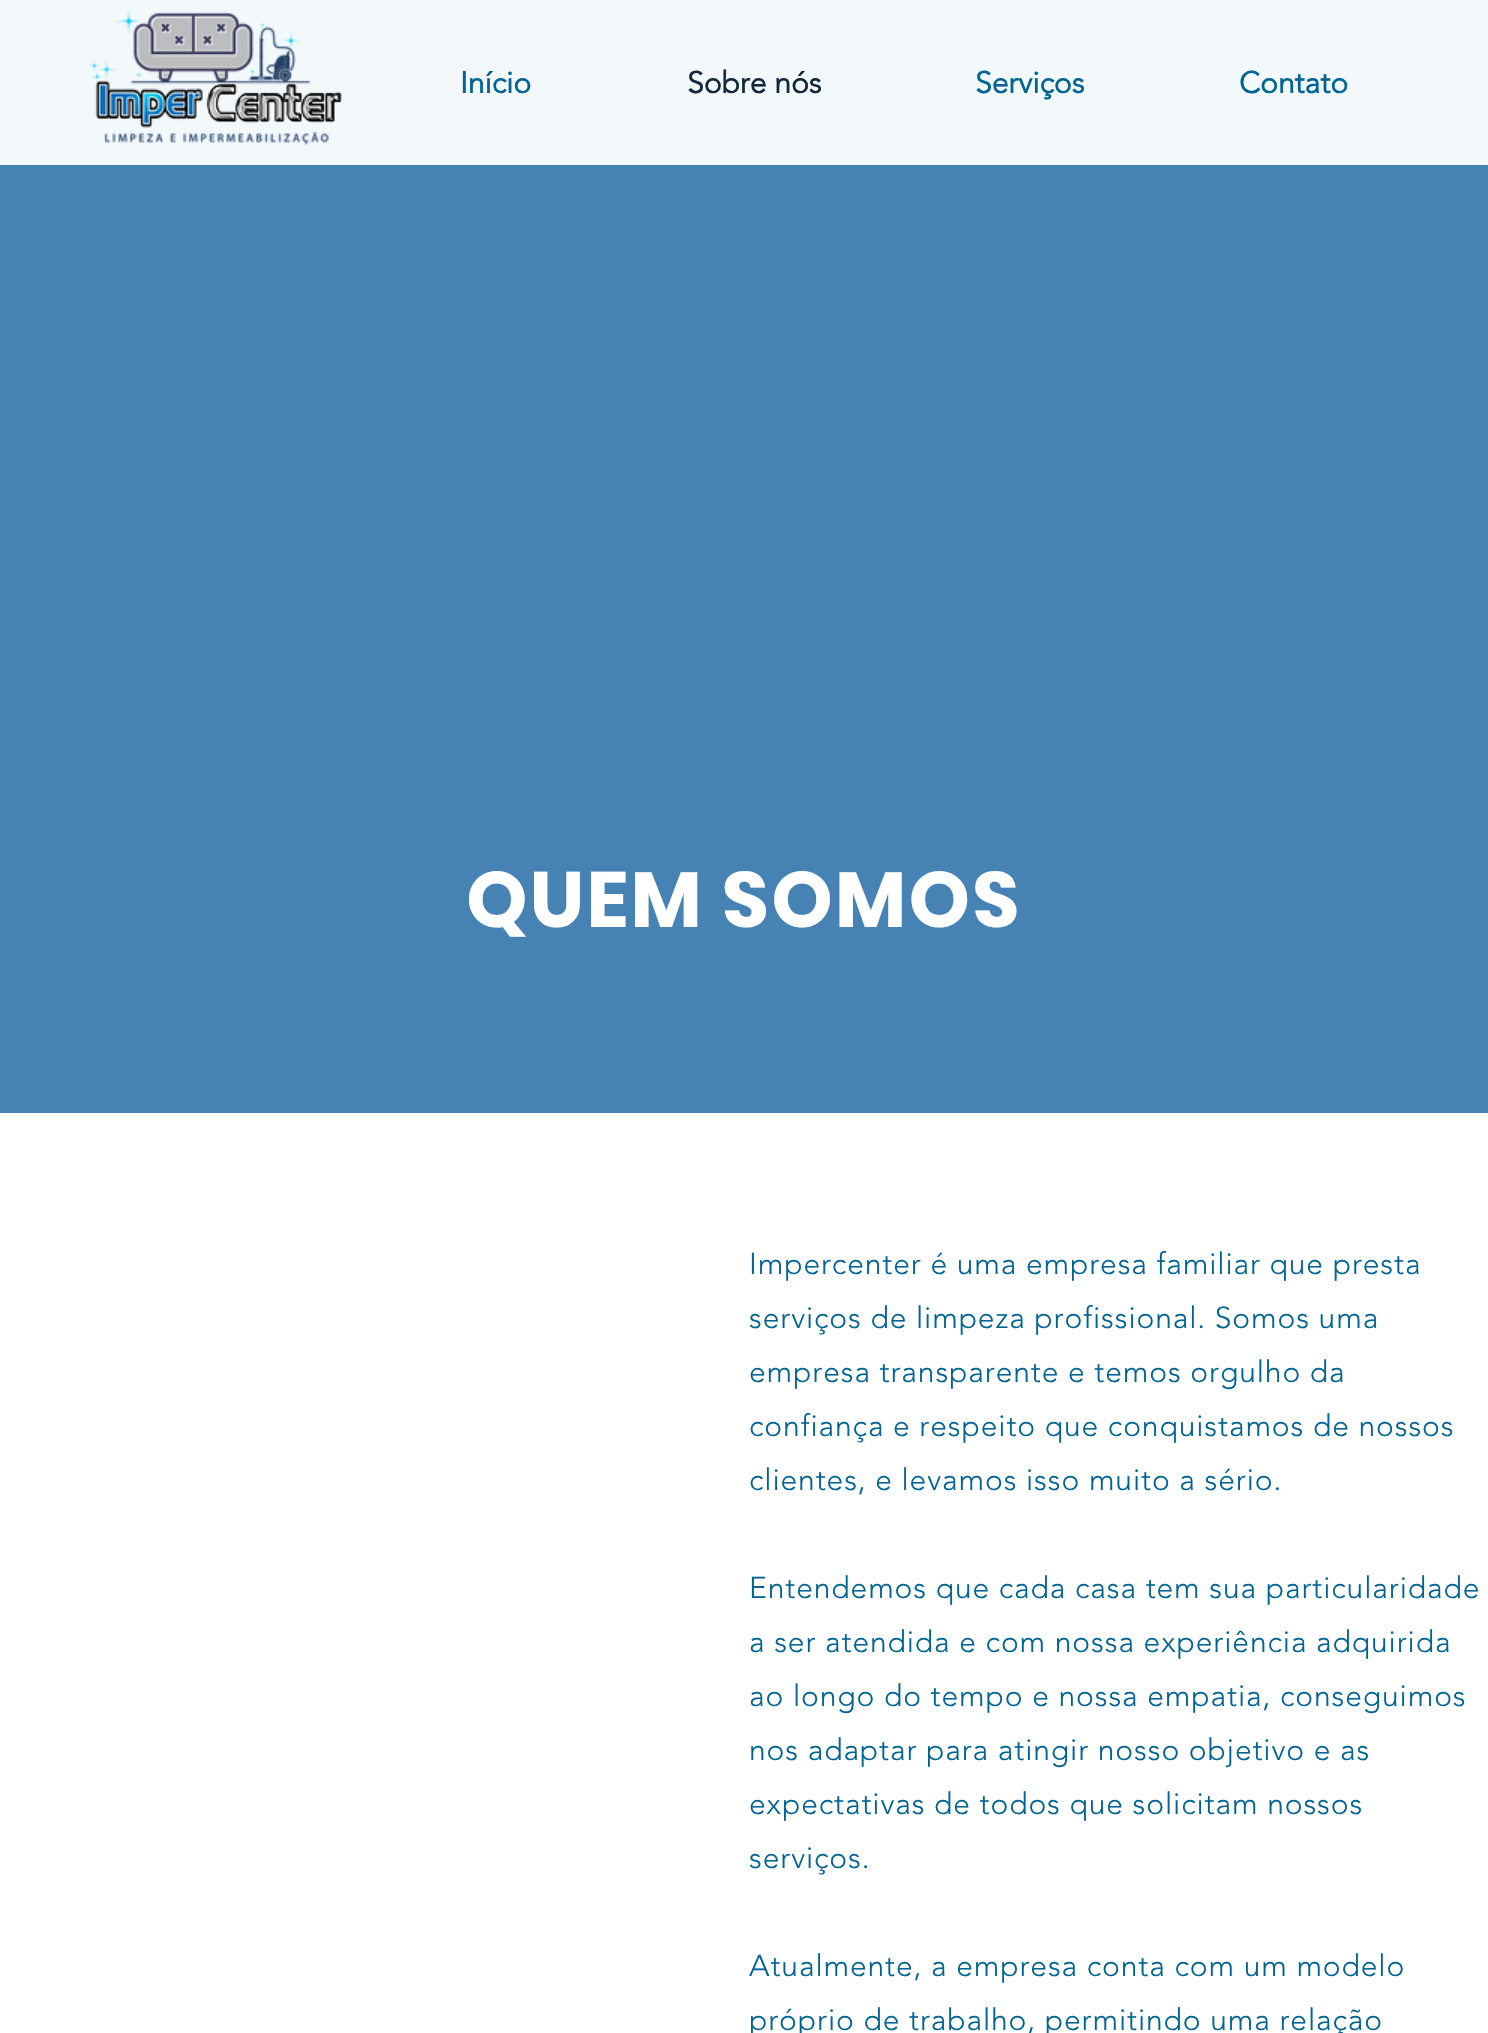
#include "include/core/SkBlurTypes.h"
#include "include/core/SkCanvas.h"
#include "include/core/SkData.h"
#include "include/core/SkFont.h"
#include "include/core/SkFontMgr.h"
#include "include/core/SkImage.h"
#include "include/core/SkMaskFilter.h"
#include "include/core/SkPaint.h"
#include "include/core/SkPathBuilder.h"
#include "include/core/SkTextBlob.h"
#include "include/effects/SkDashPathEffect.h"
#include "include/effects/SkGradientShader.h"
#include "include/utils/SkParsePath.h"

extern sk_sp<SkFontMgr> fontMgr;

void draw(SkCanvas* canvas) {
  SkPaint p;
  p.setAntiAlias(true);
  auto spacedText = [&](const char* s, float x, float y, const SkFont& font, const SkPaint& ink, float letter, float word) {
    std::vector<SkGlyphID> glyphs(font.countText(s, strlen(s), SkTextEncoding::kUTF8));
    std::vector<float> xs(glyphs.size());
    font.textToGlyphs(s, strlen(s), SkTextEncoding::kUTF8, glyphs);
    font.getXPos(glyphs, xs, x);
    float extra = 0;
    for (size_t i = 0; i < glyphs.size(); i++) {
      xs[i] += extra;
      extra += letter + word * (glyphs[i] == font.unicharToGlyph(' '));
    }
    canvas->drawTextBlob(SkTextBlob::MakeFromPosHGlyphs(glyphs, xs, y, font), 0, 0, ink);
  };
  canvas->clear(SK_ColorWHITE);
  p.setColor(SkColorSetRGB(243, 248, 251));
  canvas->drawRect(SkRect::MakeLTRB(0, 0, 1488, 165), p);
  canvas->drawImageRect(SkImages::DeferredFromEncodedData(SkData::MakeFromFileName("images/1.png")), SkRect::MakeLTRB(88, 9, 342, 146), SkSamplingOptions());
  p.setColor(SkColorSetRGB(70, 130, 180));
  canvas->drawRect(SkRect::MakeLTRB(0, 165, 1488, 1113), p);
  SkFont font1(fontMgr->matchFamilyStyle("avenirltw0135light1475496", SkFontStyle::Bold()), 30);
  font1.setSubpixel(true);
  p.setColor(SkColorSetRGB(0, 100, 148));
  canvas->drawString("Início", 460, 93, font1, p);
  p.setColor(SkColorSetRGB(19, 41, 61));
  canvas->drawString("Sobre nós", 687, 93, font1, p);
  p.setColor(SkColorSetRGB(0, 100, 148));
  canvas->drawString("Serviços", 975, 93, font1, p);
  canvas->drawString("Contato", 1239, 93, font1, p);
  SkFont font2(fontMgr->matchFamilyStyle("Poppins", SkFontStyle::Bold()), 78);
  font2.setSubpixel(true);
  p.setColor(SK_ColorWHITE);
  spacedText("QUEM SOMOS", 466, 927, font2, p, 2.25f, 0);
  SkFont font3(fontMgr->matchFamilyStyle("avenirltw0135light1475496", SkFontStyle(300, SkFontStyle::kNormal_Width, SkFontStyle::kUpright_Slant)), 30);
  font3.setSubpixel(true);
  p.setColor(SkColorSetRGB(0, 100, 148));
  spacedText("Impercenter é uma empresa familiar que presta", 749, 1274, font3, p, 0.9f, 0);
  spacedText("serviços de limpeza profissional. Somos uma", 749, 1328, font3, p, 0.9f, 0);
  spacedText("empresa transparente e temos orgulho da", 749, 1382, font3, p, 0.9f, 0);
  spacedText("confiança e respeito que conquistamos de nossos", 749, 1436, font3, p, 0.9f, 0);
  spacedText("clientes, e levamos isso muito a sério.", 749, 1490, font3, p, 0.9f, 0);
  spacedText("Entendemos que cada casa tem sua particularidade", 749, 1598, font3, p, 0.9f, 0);
  spacedText("a ser atendida e com nossa experiência adquirida", 749, 1652, font3, p, 0.9f, 0);
  spacedText("ao longo do tempo e nossa empatia, conseguimos", 749, 1706, font3, p, 0.9f, 0);
  spacedText("nos adaptar para atingir nosso objetivo e as", 749, 1760, font3, p, 0.9f, 0);
  spacedText("expectativas de todos que solicitam nossos", 749, 1814, font3, p, 0.9f, 0);
  spacedText("serviços.", 749, 1868, font3, p, 0.9f, 0);
  spacedText("Atualmente, a empresa conta com um modelo", 749, 1976, font3, p, 0.9f, 0);
  spacedText("próprio de trabalho, permitindo uma relação", 749, 2030, font3, p, 0.9f, 0);
}
